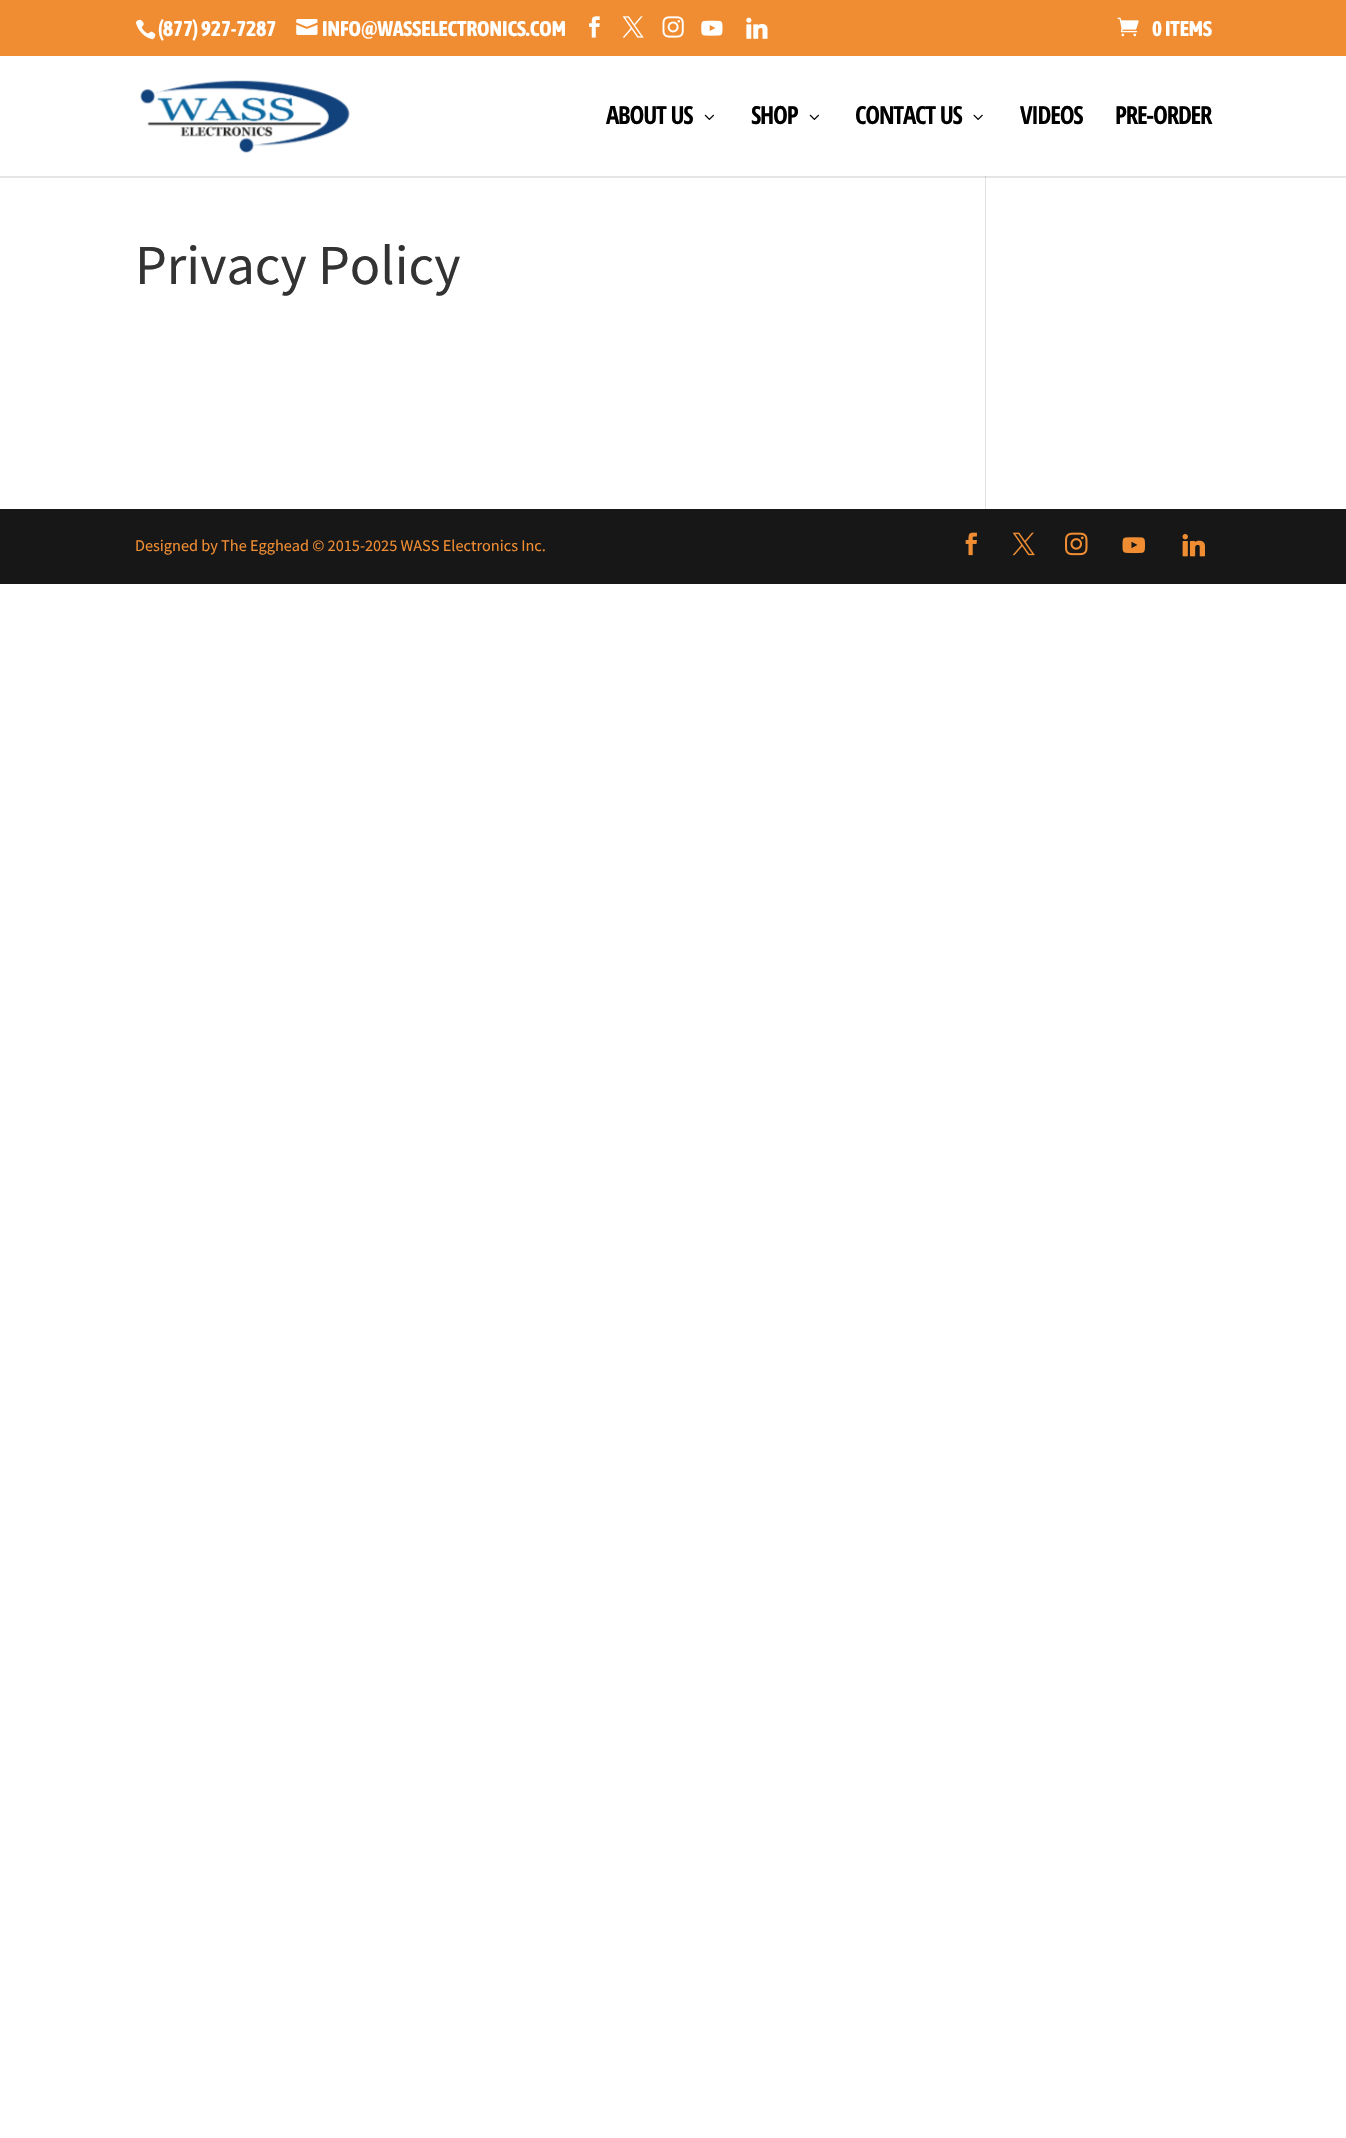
#include "include/core/SkBlurTypes.h"
#include "include/core/SkCanvas.h"
#include "include/core/SkData.h"
#include "include/core/SkFont.h"
#include "include/core/SkFontMgr.h"
#include "include/core/SkImage.h"
#include "include/core/SkMaskFilter.h"
#include "include/core/SkPaint.h"
#include "include/core/SkPathBuilder.h"
#include "include/core/SkTextBlob.h"
#include "include/effects/SkDashPathEffect.h"
#include "include/effects/SkGradientShader.h"
#include "include/utils/SkParsePath.h"

extern sk_sp<SkFontMgr> fontMgr;

void draw(SkCanvas* canvas) {
  SkPaint p;
  p.setAntiAlias(true);
  auto spacedText = [&](const char* s, float x, float y, const SkFont& font, const SkPaint& ink, float letter, float word) {
    std::vector<SkGlyphID> glyphs(font.countText(s, strlen(s), SkTextEncoding::kUTF8));
    std::vector<float> xs(glyphs.size());
    font.textToGlyphs(s, strlen(s), SkTextEncoding::kUTF8, glyphs);
    font.getXPos(glyphs, xs, x);
    float extra = 0;
    for (size_t i = 0; i < glyphs.size(); i++) {
      xs[i] += extra;
      extra += letter + word * (glyphs[i] == font.unicharToGlyph(' '));
    }
    canvas->drawTextBlob(SkTextBlob::MakeFromPosHGlyphs(glyphs, xs, y, font), 0, 0, ink);
  };
  canvas->clear(SK_ColorWHITE);
  p.setColor(SkColorSetRGB(230, 230, 230));
  canvas->drawRect(SkRect::MakeLTRB(0, 176, 1346, 178), p);
  p.setColor(SkColorSetRGB(240, 141, 50));
  canvas->drawRect(SkRect::MakeLTRB(0, 0, 1346, 56), p);
  canvas->drawImageRect(SkImages::DeferredFromEncodedData(SkData::MakeFromFileName("images/1.png")), SkRect::MakeLTRB(135, 19, 156, 40), SkSamplingOptions());
  canvas->drawImageRect(SkImages::DeferredFromEncodedData(SkData::MakeFromFileName("images/2.png")), SkRect::MakeLTRB(296, 19, 318, 35), SkSamplingOptions());
  canvas->drawImageRect(SkImages::DeferredFromEncodedData(SkData::MakeFromFileName("images/3.png")), SkRect::MakeLTRB(589, 16, 600, 38), SkSamplingOptions());
  canvas->drawImageRect(SkImages::DeferredFromEncodedData(SkData::MakeFromFileName("images/4.png")), SkRect::MakeLTRB(622, 16, 644, 38), SkSamplingOptions());
  canvas->drawImageRect(SkImages::DeferredFromEncodedData(SkData::MakeFromFileName("images/5.png")), SkRect::MakeLTRB(662, 16, 684, 38), SkSamplingOptions());
  canvas->drawImageRect(SkImages::DeferredFromEncodedData(SkData::MakeFromFileName("images/6.png")), SkRect::MakeLTRB(701, 20, 723, 36), SkSamplingOptions());
  canvas->drawImageRect(SkImages::DeferredFromEncodedData(SkData::MakeFromFileName("images/7.png")), SkRect::MakeLTRB(746, 17, 768, 39), SkSamplingOptions());
  canvas->drawImageRect(SkImages::DeferredFromEncodedData(SkData::MakeFromFileName("images/8.png")), SkRect::MakeLTRB(1117, 17, 1139, 37), SkSamplingOptions());
  canvas->drawImageRect(SkImages::DeferredFromEncodedData(SkData::MakeFromFileName("images/9.png")), SkRect::MakeLTRB(140, 80, 350, 153), SkSamplingOptions());
  canvas->drawImageRect(SkImages::DeferredFromEncodedData(SkData::MakeFromFileName("images/10.png")), SkRect::MakeLTRB(704, 114, 714, 120), SkSamplingOptions());
  canvas->drawImageRect(SkImages::DeferredFromEncodedData(SkData::MakeFromFileName("images/10.png")), SkRect::MakeLTRB(809, 114, 819, 120), SkSamplingOptions());
  canvas->drawImageRect(SkImages::DeferredFromEncodedData(SkData::MakeFromFileName("images/11.png")), SkRect::MakeLTRB(973, 114, 983, 120), SkSamplingOptions());
  p.setColor(SkColorSetRGB(226, 226, 226));
  canvas->drawRect(SkRect::MakeLTRB(985, 178, 986, 509), p);
  p.setColor(SkColorSetRGB(203, 203, 203));
  canvas->drawRect(SkRect::MakeLTRB(985, 176, 986, 178), p);
  p.setColor(SkColorSetRGB(23, 23, 23));
  canvas->drawRect(SkRect::MakeLTRB(0, 509, 1346, 584), p);
  canvas->drawImageRect(SkImages::DeferredFromEncodedData(SkData::MakeFromFileName("images/12.png")), SkRect::MakeLTRB(965, 532, 977, 556), SkSamplingOptions());
  canvas->drawImageRect(SkImages::DeferredFromEncodedData(SkData::MakeFromFileName("images/13.png")), SkRect::MakeLTRB(1012, 532, 1035, 556), SkSamplingOptions());
  canvas->drawImageRect(SkImages::DeferredFromEncodedData(SkData::MakeFromFileName("images/14.png")), SkRect::MakeLTRB(1065, 532, 1088, 556), SkSamplingOptions());
  canvas->drawImageRect(SkImages::DeferredFromEncodedData(SkData::MakeFromFileName("images/15.png")), SkRect::MakeLTRB(1122, 537, 1145, 554), SkSamplingOptions());
  canvas->drawImageRect(SkImages::DeferredFromEncodedData(SkData::MakeFromFileName("images/16.png")), SkRect::MakeLTRB(1182, 534, 1205, 557), SkSamplingOptions());
  SkFont font1(fontMgr->matchFamilyStyle("Asap Condensed", SkFontStyle::Bold()), 21.25f);
  font1.setSubpixel(true);
  p.setColor(SK_ColorWHITE);
  canvas->drawString("(877) 927-7287", 158, 36, font1, p);
  canvas->drawString("INFO@WASSELECTRONICS.COM", 322, 36, font1, p);
  canvas->drawString("0 ITEMS", 1152, 36, font1, p);
  SkFont font2(fontMgr->matchFamilyStyle("Open Sans Condensed", SkFontStyle::Bold()), 25);
  font2.setSubpixel(true);
  p.setColor(SK_ColorBLACK);
  spacedText("ABOUT US", 606, 124, font2, p, -1.25f, 0);
  spacedText("SHOP", 751, 124, font2, p, -1.25f, 0);
  spacedText("CONTACT US", 855, 124, font2, p, -1.25f, 0);
  spacedText("VIDEOS", 1020, 124, font2, p, -1.25f, 0);
  spacedText("PRE-ORDER", 1115, 124, font2, p, -1.25f, 0);
  SkFont font3(fontMgr->matchFamilyStyle("Source Sans Pro", SkFontStyle::Normal()), 56.25f);
  font3.setSubpixel(true);
  p.setColor(SkColorSetRGB(51, 51, 51));
  canvas->drawString("Privacy Policy", 135, 284, font3, p);
  SkFont font4(fontMgr->matchFamilyStyle("Source Sans Pro", SkFontStyle::Normal()), 16.25f);
  font4.setSubpixel(true);
  p.setColor(SkColorSetRGB(240, 141, 50));
  canvas->drawString("Designed by The Egghead © 2015-2025 WASS Electronics Inc.", 135, 551, font4, p);
}
